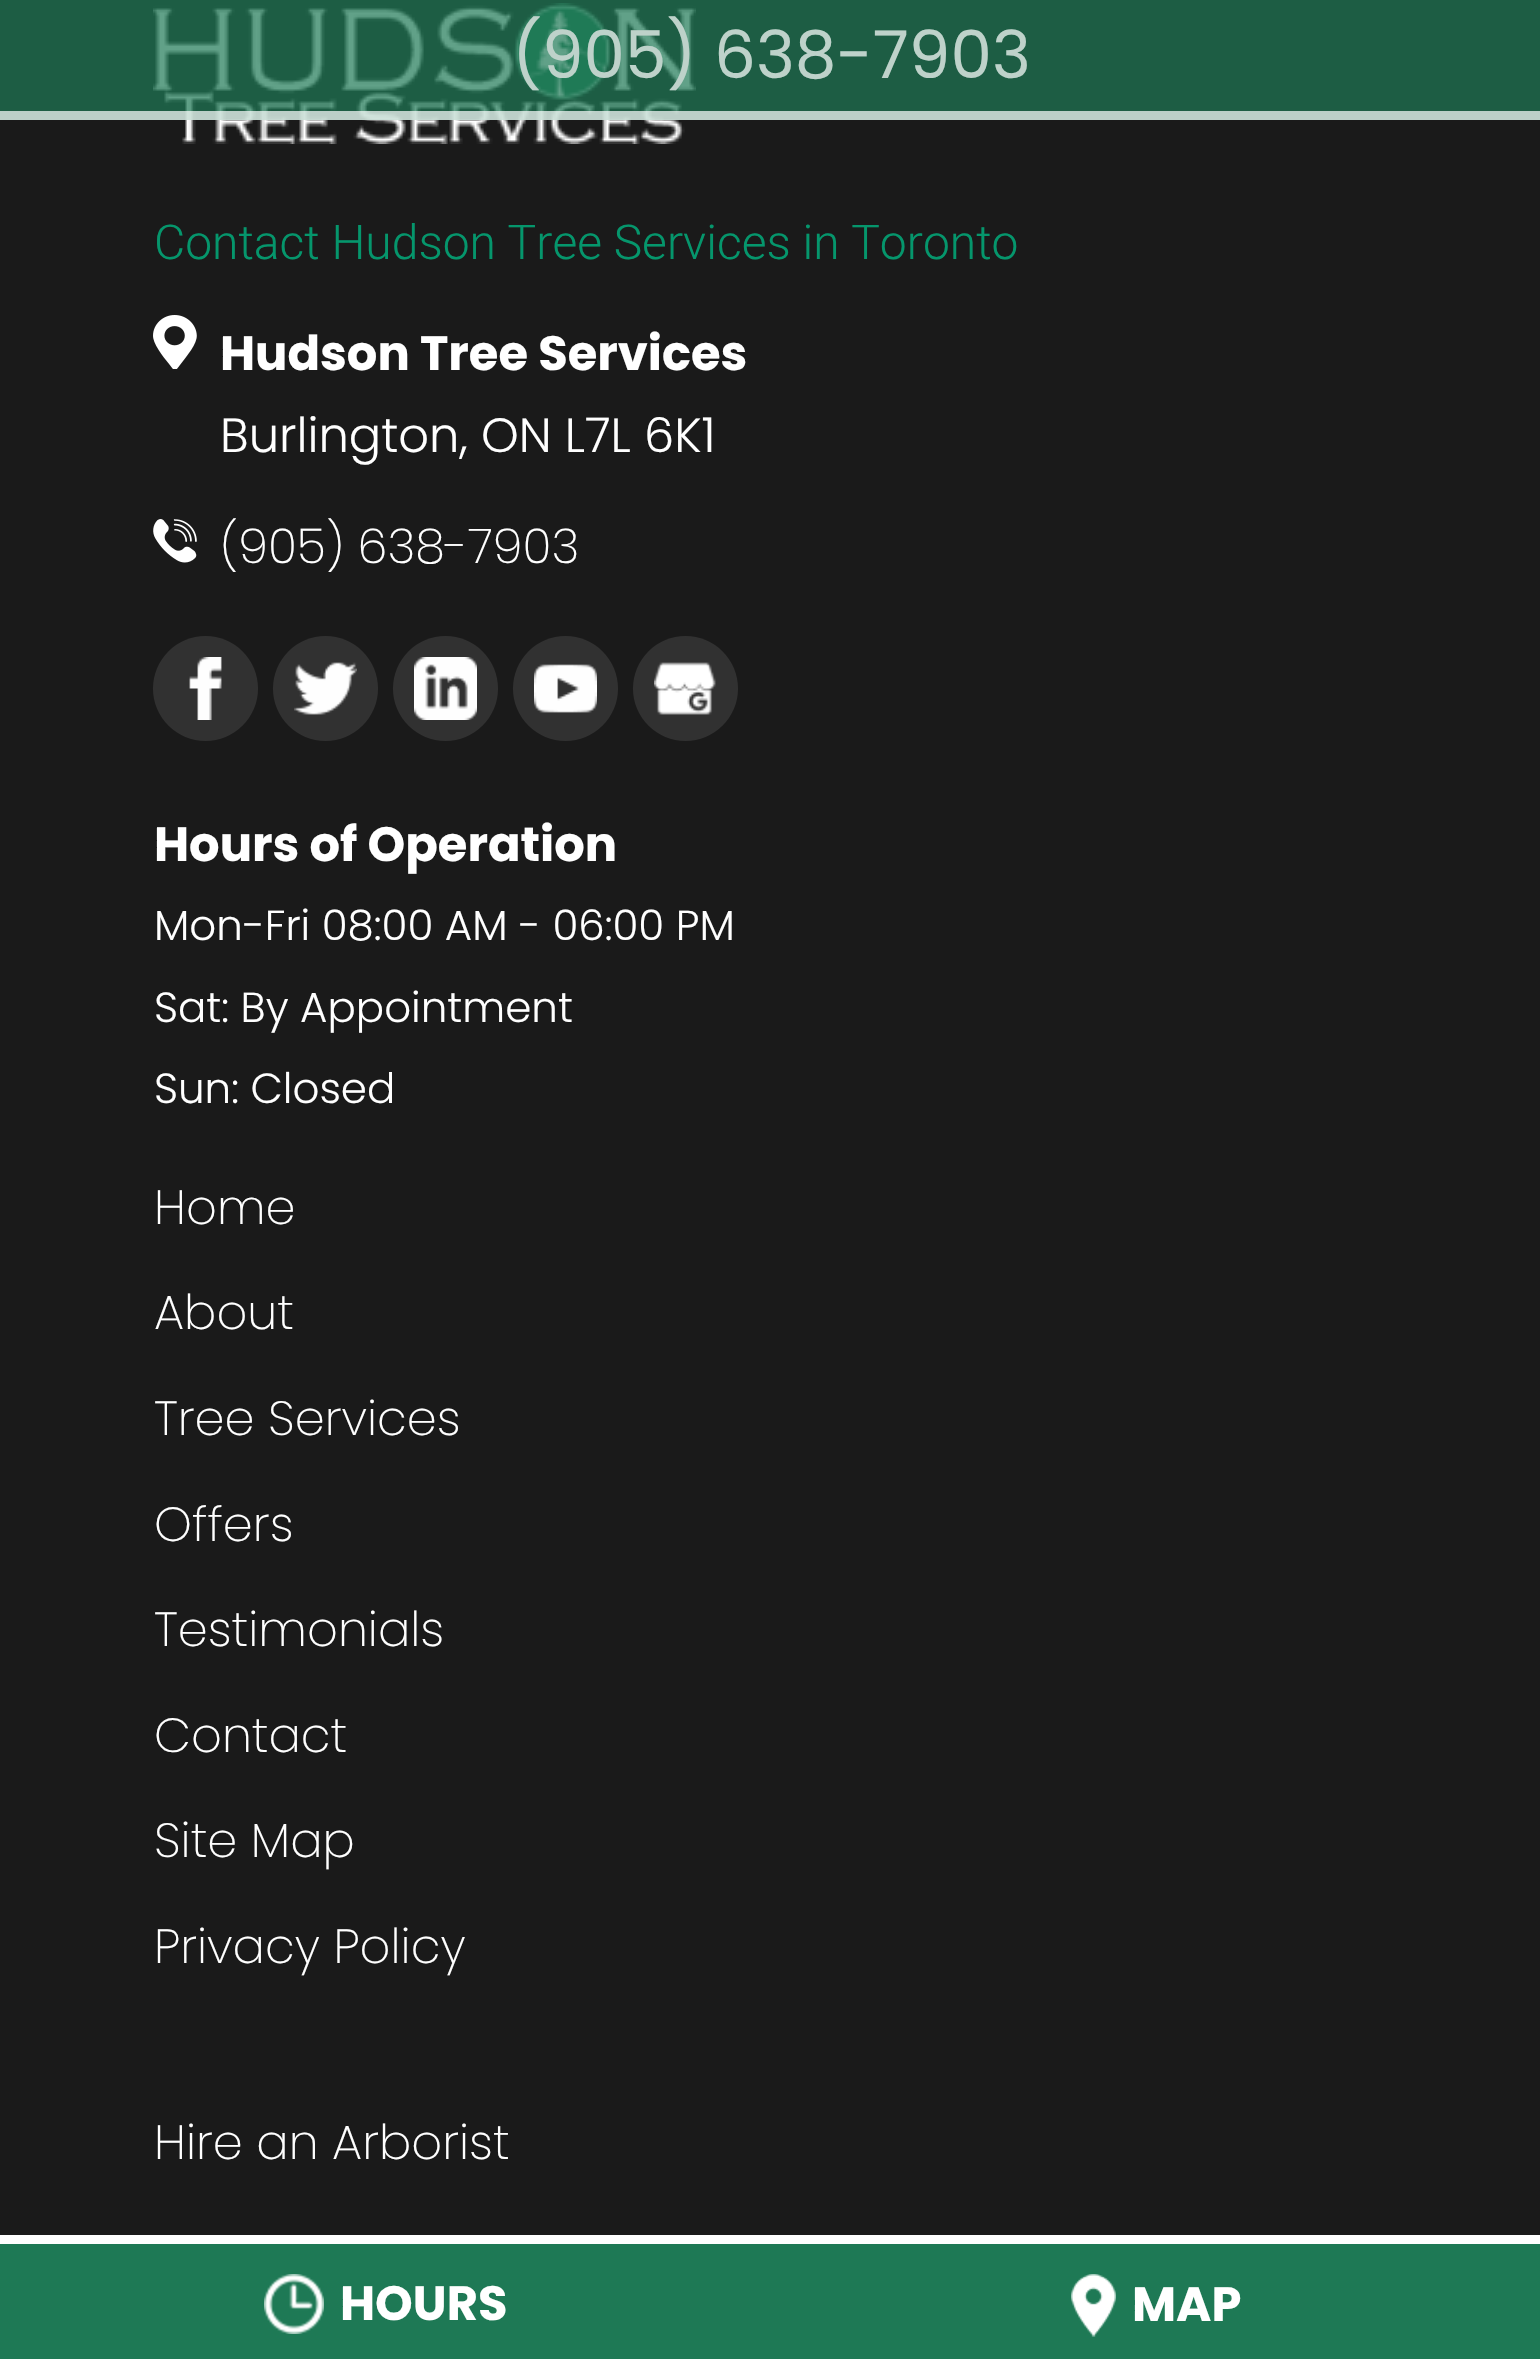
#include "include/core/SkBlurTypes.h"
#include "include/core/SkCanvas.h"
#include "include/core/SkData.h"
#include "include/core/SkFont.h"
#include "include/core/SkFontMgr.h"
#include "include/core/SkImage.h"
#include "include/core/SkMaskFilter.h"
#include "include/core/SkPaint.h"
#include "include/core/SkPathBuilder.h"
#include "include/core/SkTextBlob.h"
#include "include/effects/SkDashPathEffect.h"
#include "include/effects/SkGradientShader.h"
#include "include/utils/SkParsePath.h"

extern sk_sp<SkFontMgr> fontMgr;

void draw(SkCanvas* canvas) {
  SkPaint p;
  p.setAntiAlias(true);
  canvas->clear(SkColorSetRGB(26, 26, 26));
  canvas->drawImageRect(SkImages::DeferredFromEncodedData(SkData::MakeFromFileName("images/3.png")), SkRect::MakeLTRB(153, 3, 696, 144), SkSamplingOptions());
  p.setColor(SkColorSetARGB(179, 30, 121, 85));
  canvas->drawRect(SkRect::MakeLTRB(0, 0, 1540, 120), p);
  p.setColor(SkColorSetARGB(179, 255, 255, 255));
  canvas->drawRect(SkRect::MakeLTRB(0, 111, 1540, 120), p);
  p.setColor(SkColorSetRGB(30, 121, 85));
  canvas->drawRect(SkRect::MakeLTRB(0, 2244, 1540, 2359), p);
  p.setColor(SK_ColorWHITE);
  canvas->drawRect(SkRect::MakeLTRB(0, 2235, 1540, 2244), p);
  canvas->drawImageRect(SkImages::DeferredFromEncodedData(SkData::MakeFromFileName("images/1.png")), SkRect::MakeLTRB(264, 2274, 324, 2334), SkSamplingOptions());
  canvas->drawImageRect(SkImages::DeferredFromEncodedData(SkData::MakeFromFileName("images/2.png")), SkRect::MakeLTRB(1071, 2274, 1116, 2337), SkSamplingOptions());
  canvas->drawImageRect(SkImages::DeferredFromEncodedData(SkData::MakeFromFileName("images/4.png")), SkRect::MakeLTRB(153, 315, 197, 369), SkSamplingOptions());
  canvas->drawImageRect(SkImages::DeferredFromEncodedData(SkData::MakeFromFileName("images/5.png")), SkRect::MakeLTRB(153, 519, 197, 563), SkSamplingOptions());
  p.setColor(SkColorSetRGB(49, 49, 49));
  canvas->drawCircle(205.5f, 688.5f, 52.5f, p);
  canvas->drawImageRect(SkImages::DeferredFromEncodedData(SkData::MakeFromFileName("images/6.png")), SkRect::MakeLTRB(189, 657, 222, 720), SkSamplingOptions());
  canvas->drawCircle(325.5f, 688.5f, 52.5f, p);
  canvas->drawImageRect(SkImages::DeferredFromEncodedData(SkData::MakeFromFileName("images/7.png")), SkRect::MakeLTRB(294, 662, 357, 715), SkSamplingOptions());
  canvas->drawCircle(445.5f, 688.5f, 52.5f, p);
  canvas->drawImageRect(SkImages::DeferredFromEncodedData(SkData::MakeFromFileName("images/8.png")), SkRect::MakeLTRB(414, 657, 477, 720), SkSamplingOptions());
  canvas->drawCircle(565.5f, 688.5f, 52.5f, p);
  canvas->drawImageRect(SkImages::DeferredFromEncodedData(SkData::MakeFromFileName("images/9.png")), SkRect::MakeLTRB(534, 664, 597, 713), SkSamplingOptions());
  canvas->drawCircle(685.5f, 688.5f, 52.5f, p);
  canvas->drawImageRect(SkImages::DeferredFromEncodedData(SkData::MakeFromFileName("images/10.png")), SkRect::MakeLTRB(654, 662, 716, 715), SkSamplingOptions());
  SkFont font1(fontMgr->matchFamilyStyle("Poppins", SkFontStyle::Normal()), 66);
  font1.setSubpixel(true);
  p.setColor(SkColorSetRGB(190, 210, 202));
  canvas->drawString("(905) 638-7903", 512, 78, font1, p);
  SkFont font2(fontMgr->matchFamilyStyle("Poppins", SkFontStyle::Bold()), 48);
  font2.setSubpixel(true);
  p.setColor(SK_ColorWHITE);
  canvas->drawString("HOURS", 340, 2320, font2, p);
  canvas->drawString("MAP", 1132, 2321, font2, p);
  SkFont font3(fontMgr->matchFamilyStyle("Roboto", SkFontStyle(300, SkFontStyle::kNormal_Width, SkFontStyle::kUpright_Slant)), 48);
  font3.setSubpixel(true);
  p.setColor(SkColorSetRGB(5, 150, 108));
  canvas->drawString("Contact Hudson Tree Services in Toronto", 154, 259, font3, p);
  p.setColor(SK_ColorWHITE);
  canvas->drawString("Hudson Tree Services", 220, 370, font2, p);
  SkFont font4(fontMgr->matchFamilyStyle("Poppins", SkFontStyle(300, SkFontStyle::kNormal_Width, SkFontStyle::kUpright_Slant)), 48);
  font4.setSubpixel(true);
  canvas->drawString("Burlington, ON L7L 6K1", 220, 452, font4, p);
  SkFont font5(fontMgr->matchFamilyStyle("Poppins", SkFontStyle(200, SkFontStyle::kNormal_Width, SkFontStyle::kUpright_Slant)), 48);
  font5.setSubpixel(true);
  canvas->drawString("(905) 638-7903", 220, 563, font5, p);
  canvas->drawString("Hours of Operation", 154, 861, font2, p);
  SkFont font6(fontMgr->matchFamilyStyle("Poppins", SkFontStyle(300, SkFontStyle::kNormal_Width, SkFontStyle::kUpright_Slant)), 42);
  font6.setSubpixel(true);
  canvas->drawString("Mon-Fri 08:00 AM - 06:00 PM", 154, 940, font6, p);
  canvas->drawString("Sat: By Appointment", 154, 1022, font6, p);
  canvas->drawString("Sun: Closed", 154, 1103, font6, p);
  canvas->drawString("Home", 154, 1224, font5, p);
  canvas->drawString("About", 154, 1329, font5, p);
  canvas->drawString("Tree Services", 154, 1435, font5, p);
  canvas->drawString("Offers", 154, 1541, font5, p);
  canvas->drawString("Testimonials", 154, 1646, font5, p);
  canvas->drawString("Contact", 154, 1752, font5, p);
  canvas->drawString("Site Map", 154, 1857, font5, p);
  canvas->drawString("Privacy Policy", 154, 1963, font5, p);
  canvas->drawString("Hire an Arborist", 154, 2159, font5, p);
}
